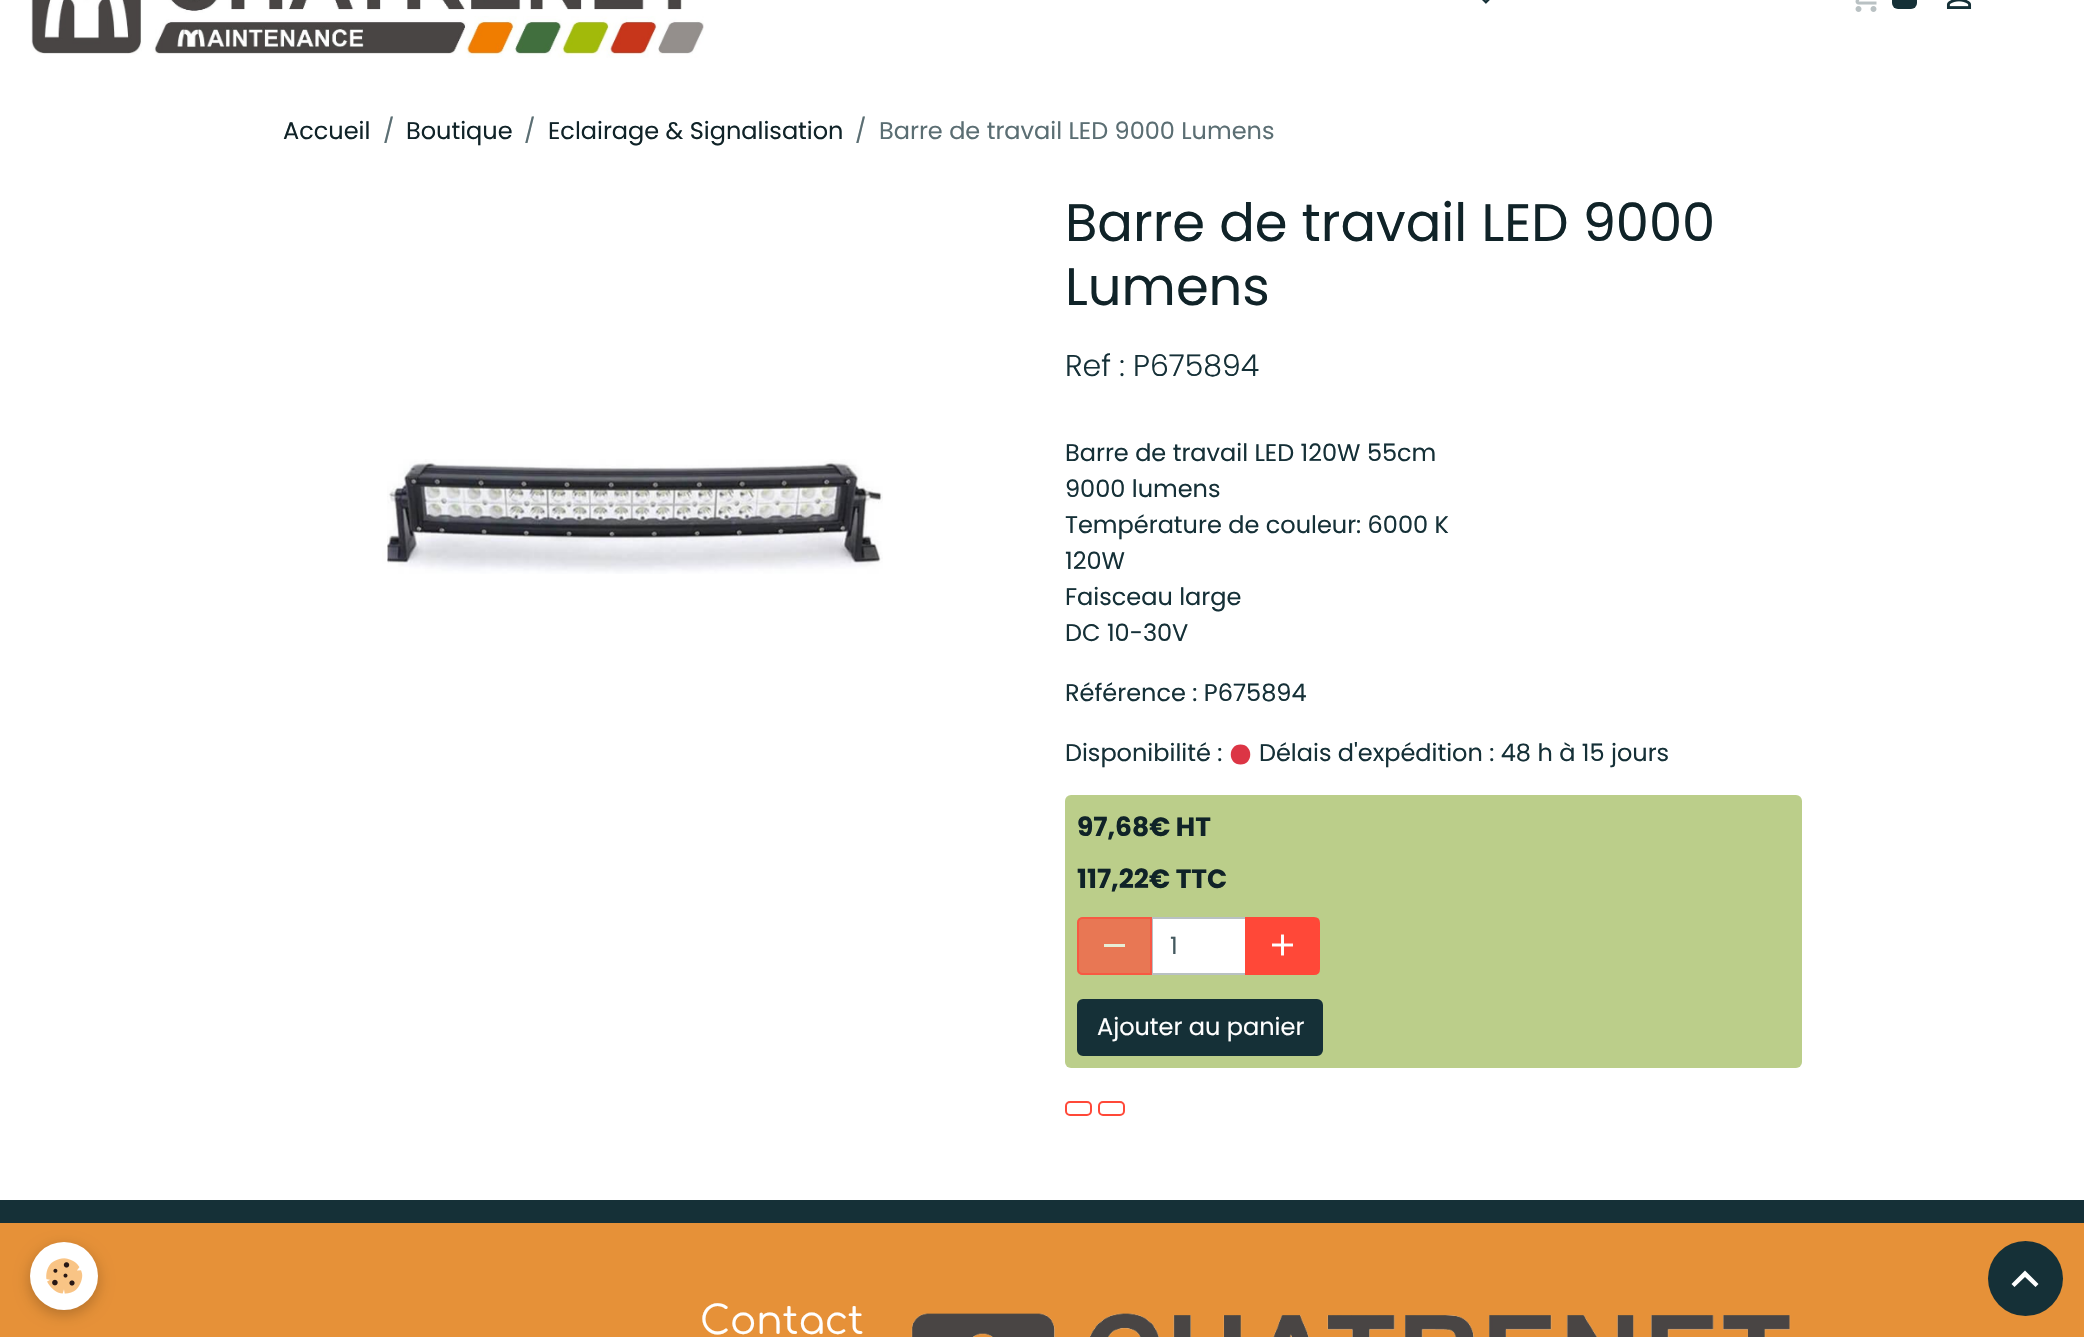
#include "include/core/SkBlurTypes.h"
#include "include/core/SkCanvas.h"
#include "include/core/SkData.h"
#include "include/core/SkFont.h"
#include "include/core/SkFontMgr.h"
#include "include/core/SkImage.h"
#include "include/core/SkMaskFilter.h"
#include "include/core/SkPaint.h"
#include "include/core/SkPathBuilder.h"
#include "include/core/SkTextBlob.h"
#include "include/effects/SkDashPathEffect.h"
#include "include/effects/SkGradientShader.h"
#include "include/utils/SkParsePath.h"

extern sk_sp<SkFontMgr> fontMgr;

void draw(SkCanvas* canvas) {
  SkPaint p;
  p.setAntiAlias(true);
  canvas->clear(SK_ColorWHITE);
  canvas->drawImageRect(SkImages::DeferredFromEncodedData(SkData::MakeFromFileName("images/1.png")), SkRect::MakeLTRB(31, 0, 704, 58), SkSamplingOptions());
  canvas->drawImageRect(SkImages::DeferredFromEncodedData(SkData::MakeFromFileName("images/2.png")), SkRect::MakeLTRB(1482, 0, 1490, 4), SkSamplingOptions());
  canvas->drawImageRect(SkImages::DeferredFromEncodedData(SkData::MakeFromFileName("images/3.png")), SkRect::MakeLTRB(1855, 0, 1877, 12), SkSamplingOptions());
  p.setColor(SkColorSetRGB(21, 48, 55));
  canvas->drawRoundRect(SkRect::MakeLTRB(1892, -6, 1917, 9), 6, 6, p);
  canvas->drawImageRect(SkImages::DeferredFromEncodedData(SkData::MakeFromFileName("images/4.png")), SkRect::MakeLTRB(1946, 0, 1972, 9), SkSamplingOptions());
  canvas->drawImageRect(SkImages::DeferredFromEncodedData(SkData::MakeFromFileName("images/5.png")), SkRect::MakeLTRB(382, 459, 883, 574), SkSamplingOptions());
  p.setColor(SkColorSetRGB(220, 53, 69));
  canvas->drawPath(SkPathBuilder().moveTo(1240.5f, 744.5f).cubicTo(1253.5f, 744.5f, 1253.5f, 764.5f, 1240.5f, 764.5f).cubicTo(1227.5f, 764.5f, 1227.5f, 744.5f, 1240.5f, 744.5f).close().detach(), p);
  p.setColor(SkColorSetRGB(187, 206, 138));
  canvas->drawRoundRect(SkRect::MakeLTRB(1065, 795, 1802, 1068), 6, 6, p);
  p.setColor(SK_ColorWHITE);
  canvas->drawRect(SkRect::MakeLTRB(1152, 918, 1246, 974), p);
  p.setStyle(SkPaint::kStroke_Style);
  p.setStrokeWidth(2);
  p.setColor(SkColorSetRGB(185, 193, 195));
  canvas->drawRect(SkRect::MakeLTRB(1152, 918, 1246, 974), p);
  p.setStyle(SkPaint::kFill_Style);
  p.setColor(SkColorSetARGB(166, 255, 72, 56));
  canvas->drawPath(SkPathBuilder().moveTo(1083, 917).lineTo(1152, 917).lineTo(1152, 975).lineTo(1083, 975).cubicTo(1079.5f, 975, 1077, 972.5f, 1077, 969).lineTo(1077, 923).cubicTo(1077, 919.5f, 1079.5f, 917, 1083, 917).close().detach(), p);
  p.setStyle(SkPaint::kStroke_Style);
  canvas->drawPath(SkPathBuilder().moveTo(1083, 918).lineTo(1151, 918).lineTo(1151, 974).lineTo(1083, 974).cubicTo(1080, 974, 1078, 972, 1078, 969).lineTo(1078, 923).cubicTo(1078, 920, 1080, 918, 1083, 918).close().detach(), p);
  p.setStyle(SkPaint::kFill_Style);
  p.setColor(SkColorSetRGB(231, 238, 214));
  canvas->drawRect(SkRect::MakeLTRB(1104, 944, 1125, 947), p);
  p.setColor(SkColorSetRGB(255, 72, 56));
  canvas->drawPath(SkPathBuilder().moveTo(1246, 918).lineTo(1314, 918).cubicTo(1317, 918, 1319, 920, 1319, 923).lineTo(1319, 969).cubicTo(1319, 972, 1317, 974, 1314, 974).lineTo(1246, 974).close().detach(), p);
  p.setStyle(SkPaint::kStroke_Style);
  canvas->drawPath(SkPathBuilder().moveTo(1246, 918).lineTo(1314, 918).cubicTo(1317, 918, 1319, 920, 1319, 923).lineTo(1319, 969).cubicTo(1319, 972, 1317, 974, 1314, 974).lineTo(1246, 974).close().detach(), p);
  canvas->drawImageRect(SkImages::DeferredFromEncodedData(SkData::MakeFromFileName("images/6.png")), SkRect::MakeLTRB(1272, 934, 1293, 956), SkSamplingOptions());
  p.setStyle(SkPaint::kFill_Style);
  p.setColor(SkColorSetRGB(21, 48, 55));
  canvas->drawRoundRect(SkRect::MakeLTRB(1078, 1000, 1322, 1055), 5, 5, p);
  p.setStyle(SkPaint::kStroke_Style);
  canvas->drawRoundRect(SkRect::MakeLTRB(1078, 1000, 1322, 1055), 5, 5, p);
  p.setColor(SkColorSetRGB(255, 72, 56));
  canvas->drawRoundRect(SkRect::MakeLTRB(1066, 1102, 1091, 1115), 4, 4, p);
  canvas->drawRoundRect(SkRect::MakeLTRB(1099, 1102, 1124, 1115), 4, 4, p);
  p.setStyle(SkPaint::kFill_Style);
  p.setColor(SkColorSetRGB(230, 145, 56));
  canvas->drawRect(SkRect::MakeLTRB(0, 1223, 2084, 1337), p);
  p.setColor(SkColorSetARGB(61, 0, 0, 0));
  p.setMaskFilter(SkMaskFilter::MakeBlur(kNormal_SkBlurStyle, 7.5f));
  canvas->drawRoundRect(SkRect::MakeLTRB(30, 1247, 98, 1314), 33.5f, 33.5f, p);
  p.setMaskFilter(nullptr);
  p.setColor(SK_ColorWHITE);
  canvas->drawCircle(64, 1276, 34, p);
  canvas->drawImageRect(SkImages::DeferredFromEncodedData(SkData::MakeFromFileName("images/7.png")), SkRect::MakeLTRB(46, 1258, 83, 1294), SkSamplingOptions());
  p.setColor(SkColorSetRGB(21, 48, 55));
  canvas->drawRect(SkRect::MakeLTRB(0, 1200, 2084, 1223), p);
  canvas->drawImageRect(SkImages::DeferredFromEncodedData(SkData::MakeFromFileName("images/8.png")), SkRect::MakeLTRB(911, 1313, 1791, 1337), SkSamplingOptions());
  canvas->drawCircle(2025.5f, 1278.5f, 37.5f, p);
  p.setColor(SK_ColorWHITE);
  canvas->drawPath(SkPathBuilder().moveTo(2025, 1270.5f).lineTo(2038.5f, 1284).lineTo(2035.5f, 1287).lineTo(2025, 1277).lineTo(2014.5f, 1287).lineTo(2011.5f, 1284).close().detach(), p);
  SkFont font1(fontMgr->matchFamilyStyle("Poppins", SkFontStyle::Normal()), 24);
  font1.setSubpixel(true);
  p.setColor(SkColorSetRGB(16, 35, 40));
  canvas->drawString("Accueil", 283, 139, font1, p);
  p.setColor(SkColorSetRGB(91, 110, 115));
  canvas->drawString("/", 383, 139, font1, p);
  p.setColor(SkColorSetRGB(16, 35, 40));
  canvas->drawString("Boutique", 406, 139, font1, p);
  p.setColor(SkColorSetRGB(91, 110, 115));
  canvas->drawString("/", 524, 139, font1, p);
  p.setColor(SkColorSetRGB(16, 35, 40));
  canvas->drawString("Eclairage & Signalisation", 548, 139, font1, p);
  p.setColor(SkColorSetRGB(91, 110, 115));
  canvas->drawString("/", 855, 139, font1, p);
  canvas->drawString("Barre de travail LED 9000 Lumens", 879, 139, font1, p);
  SkFont font2(fontMgr->matchFamilyStyle("Poppins", SkFontStyle::Normal()), 52.75f);
  font2.setSubpixel(true);
  p.setColor(SkColorSetRGB(16, 35, 40));
  canvas->drawString("Barre de travail LED 9000", 1065, 241, font2, p);
  canvas->drawString("Lumens", 1065, 305, font2, p);
  SkFont font3(fontMgr->matchFamilyStyle("Poppins", SkFontStyle(300, SkFontStyle::kNormal_Width, SkFontStyle::kUpright_Slant)), 30);
  font3.setSubpixel(true);
  p.setColor(SkColorSetRGB(21, 48, 55));
  canvas->drawString("Ref : P675894", 1065, 376, font3, p);
  canvas->drawString("Barre de travail LED 120W 55cm", 1065, 461, font1, p);
  canvas->drawString("9000 lumens", 1065, 497, font1, p);
  canvas->drawString("Température de couleur: 6000 K", 1065, 533, font1, p);
  canvas->drawString("120W", 1065, 569, font1, p);
  canvas->drawString("Faisceau large", 1065, 605, font1, p);
  canvas->drawString("DC 10-30V", 1065, 641, font1, p);
  canvas->drawString("Référence : P675894", 1065, 701, font1, p);
  canvas->drawString("Disponibilité :", 1065, 761, font1, p);
  canvas->drawString("Délais d'expédition : 48 h à 15 jours", 1259, 761, font1, p);
  SkFont font4(fontMgr->matchFamilyStyle("Poppins", SkFontStyle::Bold()), 26.5f);
  font4.setSubpixel(true);
  p.setColor(SkColorSetRGB(16, 35, 40));
  canvas->drawString("97,68€ HT", 1077, 836, font4, p);
  canvas->drawString("117,22€ TTC", 1077, 888, font4, p);
  p.setColor(SkColorSetRGB(68, 89, 95));
  canvas->drawString("1", 1170, 954, font1, p);
  p.setColor(SK_ColorWHITE);
  canvas->drawString("Ajouter au panier", 1097, 1035, font1, p);
  SkFont font5(fontMgr->matchFamilyStyle("Comfortaa", SkFontStyle::Normal()), 39);
  font5.setSubpixel(true);
  canvas->drawString("Contact", 700, 1334, font5, p);
}
